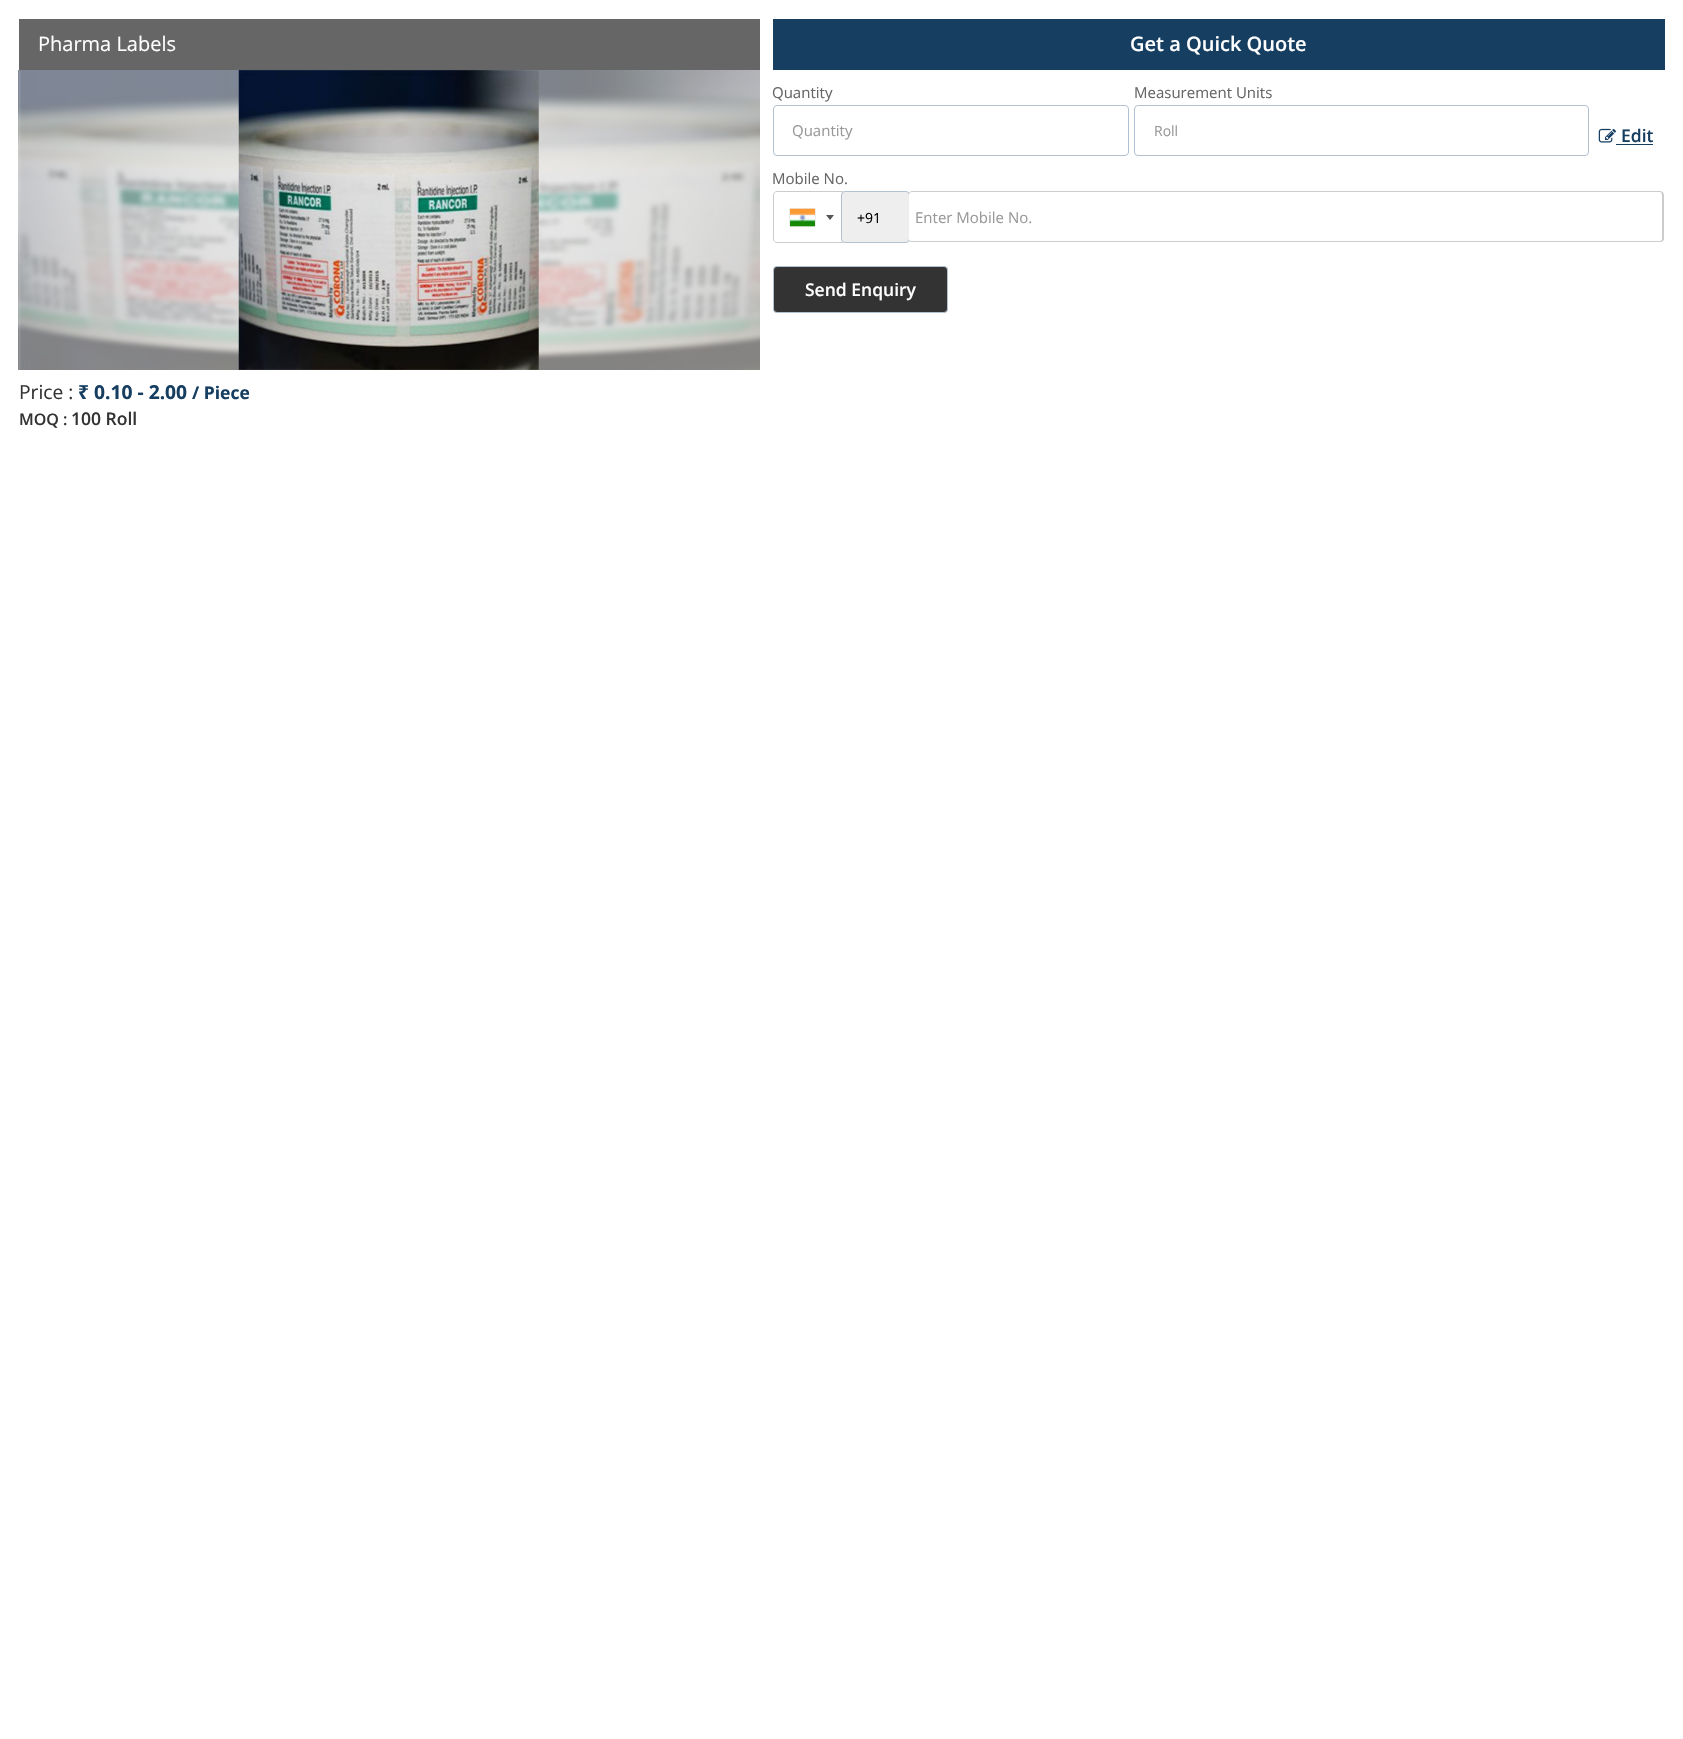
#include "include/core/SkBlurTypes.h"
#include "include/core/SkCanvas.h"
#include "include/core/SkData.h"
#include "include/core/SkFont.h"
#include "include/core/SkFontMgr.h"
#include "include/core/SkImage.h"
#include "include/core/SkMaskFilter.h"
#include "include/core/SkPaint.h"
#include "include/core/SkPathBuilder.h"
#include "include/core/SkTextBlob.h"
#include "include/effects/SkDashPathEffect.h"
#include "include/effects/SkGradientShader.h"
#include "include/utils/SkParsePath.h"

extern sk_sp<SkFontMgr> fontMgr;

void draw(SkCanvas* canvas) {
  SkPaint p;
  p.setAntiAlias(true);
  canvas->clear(SK_ColorWHITE);
  p.setColor(SkColorSetRGB(247, 247, 247));
  canvas->drawRect(SkRect::MakeLTRB(19, 70, 25, 370), p);
  p.setColor(SkColorSetRGB(102, 102, 102));
  canvas->drawRect(SkRect::MakeLTRB(19, 19, 760, 70), p);
  canvas->drawImageRect(SkImages::DeferredFromEncodedData(SkData::MakeFromFileName("images/1.png")), SkRect::MakeLTRB(18, 70, 760, 370), SkSamplingOptions());
  p.setColor(SkColorSetRGB(22, 62, 97));
  canvas->drawRect(SkRect::MakeLTRB(773, 19, 1665, 70), p);
  p.setStyle(SkPaint::kStroke_Style);
  p.setStrokeWidth(1);
  p.setColor(SkColorSetRGB(178, 193, 207));
  canvas->drawRoundRect(SkRect::MakeLTRB(773.5f, 105.5f, 1128.5f, 155.5f), 3.5f, 3.5f, p);
  p.setStyle(SkPaint::kFill_Style);
  p.setColor(SkColorSetRGB(51, 51, 51));
  canvas->drawRoundRect(SkRect::MakeLTRB(773.5f, 266.5f, 947.5f, 312.5f), 3.5f, 3.5f, p);
  p.setStyle(SkPaint::kStroke_Style);
  p.setColor(SkColorSetRGB(178, 193, 207));
  canvas->drawRoundRect(SkRect::MakeLTRB(773.5f, 266.5f, 947.5f, 312.5f), 3.5f, 3.5f, p);
  canvas->save();
  canvas->clipRect(SkRect::MakeLTRB(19, 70, 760, 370));
  p.setStyle(SkPaint::kFill_Style);
  p.setColor(SkColorSetARGB(128, 247, 247, 247));
  p.setMaskFilter(SkMaskFilter::MakeBlur(kNormal_SkBlurStyle, 2.5f));
  canvas->drawRect(SkRect::MakeLTRB(19, 58, 773, 383), p);
  p.setMaskFilter(nullptr);
  canvas->restore();
  canvas->drawImageRect(SkImages::DeferredFromEncodedData(SkData::MakeFromFileName("images/2.png")), SkRect::MakeLTRB(238, 70, 539, 370), SkSamplingOptions());
  p.setStyle(SkPaint::kStroke_Style);
  p.setColor(SkColorSetRGB(178, 193, 207));
  canvas->drawRoundRect(SkRect::MakeLTRB(1134.5f, 105.5f, 1588.5f, 155.5f), 3.5f, 3.5f, p);
  canvas->drawImageRect(SkImages::DeferredFromEncodedData(SkData::MakeFromFileName("images/3.png")), SkRect::MakeLTRB(1598, 128, 1616, 143), SkSamplingOptions());
  p.setStyle(SkPaint::kFill_Style);
  p.setColor(SkColorSetRGB(22, 62, 97));
  canvas->drawRect(SkRect::MakeLTRB(1616, 144, 1653, 145), p);
  p.setStyle(SkPaint::kStroke_Style);
  p.setColor(SkColorSetRGB(204, 204, 204));
  canvas->drawPath(SkPathBuilder().moveTo(777, 191.5f).lineTo(842.5f, 191.5f).lineTo(842.5f, 242.5f).lineTo(777, 242.5f).cubicTo(775, 242.5f, 773.5f, 241, 773.5f, 239).lineTo(773.5f, 195).cubicTo(773.5f, 193, 775, 191.5f, 777, 191.5f).close().detach(), p);
  p.setStyle(SkPaint::kFill_Style);
  p.setColor(SkColorSetRGB(136, 136, 136));
  p.setMaskFilter(SkMaskFilter::MakeBlur(kNormal_SkBlurStyle, 0.5f));
  canvas->drawRect(SkRect::MakeLTRB(790, 209, 815, 226), p);
  p.setMaskFilter(nullptr);
  canvas->drawImageRect(SkImages::DeferredFromEncodedData(SkData::MakeFromFileName("images/4.png")), SkRect::MakeLTRB(790, 208, 815, 227), SkSamplingOptions());
  p.setColor(SkColorSetRGB(85, 85, 85));
  canvas->drawPath(SkPathBuilder().moveTo(826, 215).lineTo(834, 215).lineTo(830, 220).close().detach(), p);
  p.setColor(SkColorSetRGB(238, 238, 238));
  canvas->drawRoundRect(SkRect::MakeLTRB(841.5f, 191.5f, 909.5f, 242.5f), 3.5f, 3.5f, p);
  p.setStyle(SkPaint::kStroke_Style);
  p.setColor(SkColorSetRGB(178, 193, 207));
  canvas->drawRoundRect(SkRect::MakeLTRB(841.5f, 191.5f, 909.5f, 242.5f), 3.5f, 3.5f, p);
  p.setStyle(SkPaint::kFill_Style);
  p.setColor(SK_ColorWHITE);
  canvas->drawPath(SkPathBuilder().moveTo(912, 192).lineTo(1660, 192).cubicTo(1661, 192, 1662, 194, 1662, 195).lineTo(1662, 239).cubicTo(1662, 240, 1661, 241, 1660, 241).lineTo(912, 241).cubicTo(910, 241, 909, 240, 909, 239).lineTo(909, 195).cubicTo(909, 194, 910, 192, 912, 192).close().detach(), p);
  p.setColor(SkColorSetRGB(204, 204, 204));
  canvas->drawPath(SkPathBuilder(SkPathFillType::kEvenOdd).moveTo(912, 191).lineTo(1660, 191).cubicTo(1662, 191, 1664, 193, 1664, 195).lineTo(1664, 239).cubicTo(1664, 241, 1662, 242, 1660, 242).lineTo(912, 242).cubicTo(910, 242, 909, 241, 909, 239).lineTo(909, 195).cubicTo(909, 193, 910, 191, 912, 191).close().moveTo(912, 192).lineTo(1660, 192).cubicTo(1661, 192, 1662, 194, 1662, 195).lineTo(1662, 239).cubicTo(1662, 240, 1661, 241, 1660, 241).lineTo(912, 241).cubicTo(910, 241, 909, 240, 909, 239).lineTo(909, 195).cubicTo(909, 194, 910, 192, 912, 192).close().detach(), p);
  SkFont font1(fontMgr->matchFamilyStyle("Open Sans", SkFontStyle::Normal()), 20);
  font1.setSubpixel(true);
  p.setColor(SK_ColorWHITE);
  canvas->drawString("Pharma Labels", 38, 51, font1, p);
  SkFont font2(fontMgr->matchFamilyStyle("Open Sans", SkFontStyle::Normal()), 19.25f);
  font2.setSubpixel(true);
  p.setColor(SkColorSetRGB(51, 51, 51));
  canvas->drawString("Price :", 19, 399, font2, p);
  SkFont font3(fontMgr->matchFamilyStyle("Noto Sans", SkFontStyle::Bold()), 19.25f);
  font3.setSubpixel(true);
  p.setColor(SkColorSetRGB(22, 62, 97));
  canvas->drawString("₹ 0.10 - 2.00", 78, 399, font3, p);
  SkFont font4(fontMgr->matchFamilyStyle("Open Sans", SkFontStyle::Bold()), 17.5f);
  font4.setSubpixel(true);
  canvas->drawString("/ Piece", 192, 399, font4, p);
  SkFont font5(fontMgr->matchFamilyStyle("Open Sans", SkFontStyle(600, SkFontStyle::kNormal_Width, SkFontStyle::kUpright_Slant)), 16);
  font5.setSubpixel(true);
  p.setColor(SkColorSetRGB(51, 51, 51));
  canvas->drawString("MOQ :", 19, 425, font5, p);
  SkFont font6(fontMgr->matchFamilyStyle("Open Sans", SkFontStyle(600, SkFontStyle::kNormal_Width, SkFontStyle::kUpright_Slant)), 17.5f);
  font6.setSubpixel(true);
  canvas->drawString("100 Roll", 71, 425, font6, p);
  SkFont font7(fontMgr->matchFamilyStyle("Open Sans", SkFontStyle(600, SkFontStyle::kNormal_Width, SkFontStyle::kUpright_Slant)), 20);
  font7.setSubpixel(true);
  p.setColor(SK_ColorWHITE);
  canvas->drawString("Get a Quick Quote", 1130, 51, font7, p);
  SkFont font8(fontMgr->matchFamilyStyle("Open Sans", SkFontStyle::Normal()), 15);
  font8.setSubpixel(true);
  p.setColor(SkColorSetRGB(102, 102, 102));
  canvas->drawString("Quantity", 772, 98, font8, p);
  p.setColor(SkColorSetRGB(153, 153, 153));
  canvas->drawString("Quantity", 792, 136, font8, p);
  p.setColor(SkColorSetRGB(102, 102, 102));
  canvas->drawString("Measurement Units", 1134, 98, font8, p);
  SkFont font9(fontMgr->matchFamilyStyle("Open Sans", SkFontStyle::Normal()), 14);
  font9.setSubpixel(true);
  p.setColor(SkColorSetRGB(153, 153, 153));
  canvas->drawString("Roll", 1154, 136, font9, p);
  p.setColor(SkColorSetRGB(22, 62, 97));
  canvas->drawString("Edit", 1621, 142, font6, p);
  p.setColor(SkColorSetRGB(102, 102, 102));
  canvas->drawString("Mobile No.", 772, 184, font8, p);
  p.setColor(SK_ColorBLACK);
  canvas->drawString("+91", 857, 223, font9, p);
  p.setColor(SkColorSetRGB(153, 153, 153));
  canvas->drawString("Enter Mobile No.", 915, 223, font8, p);
  p.setColor(SK_ColorWHITE);
  canvas->drawString("Send Enquiry", 805, 296, font6, p);
}
